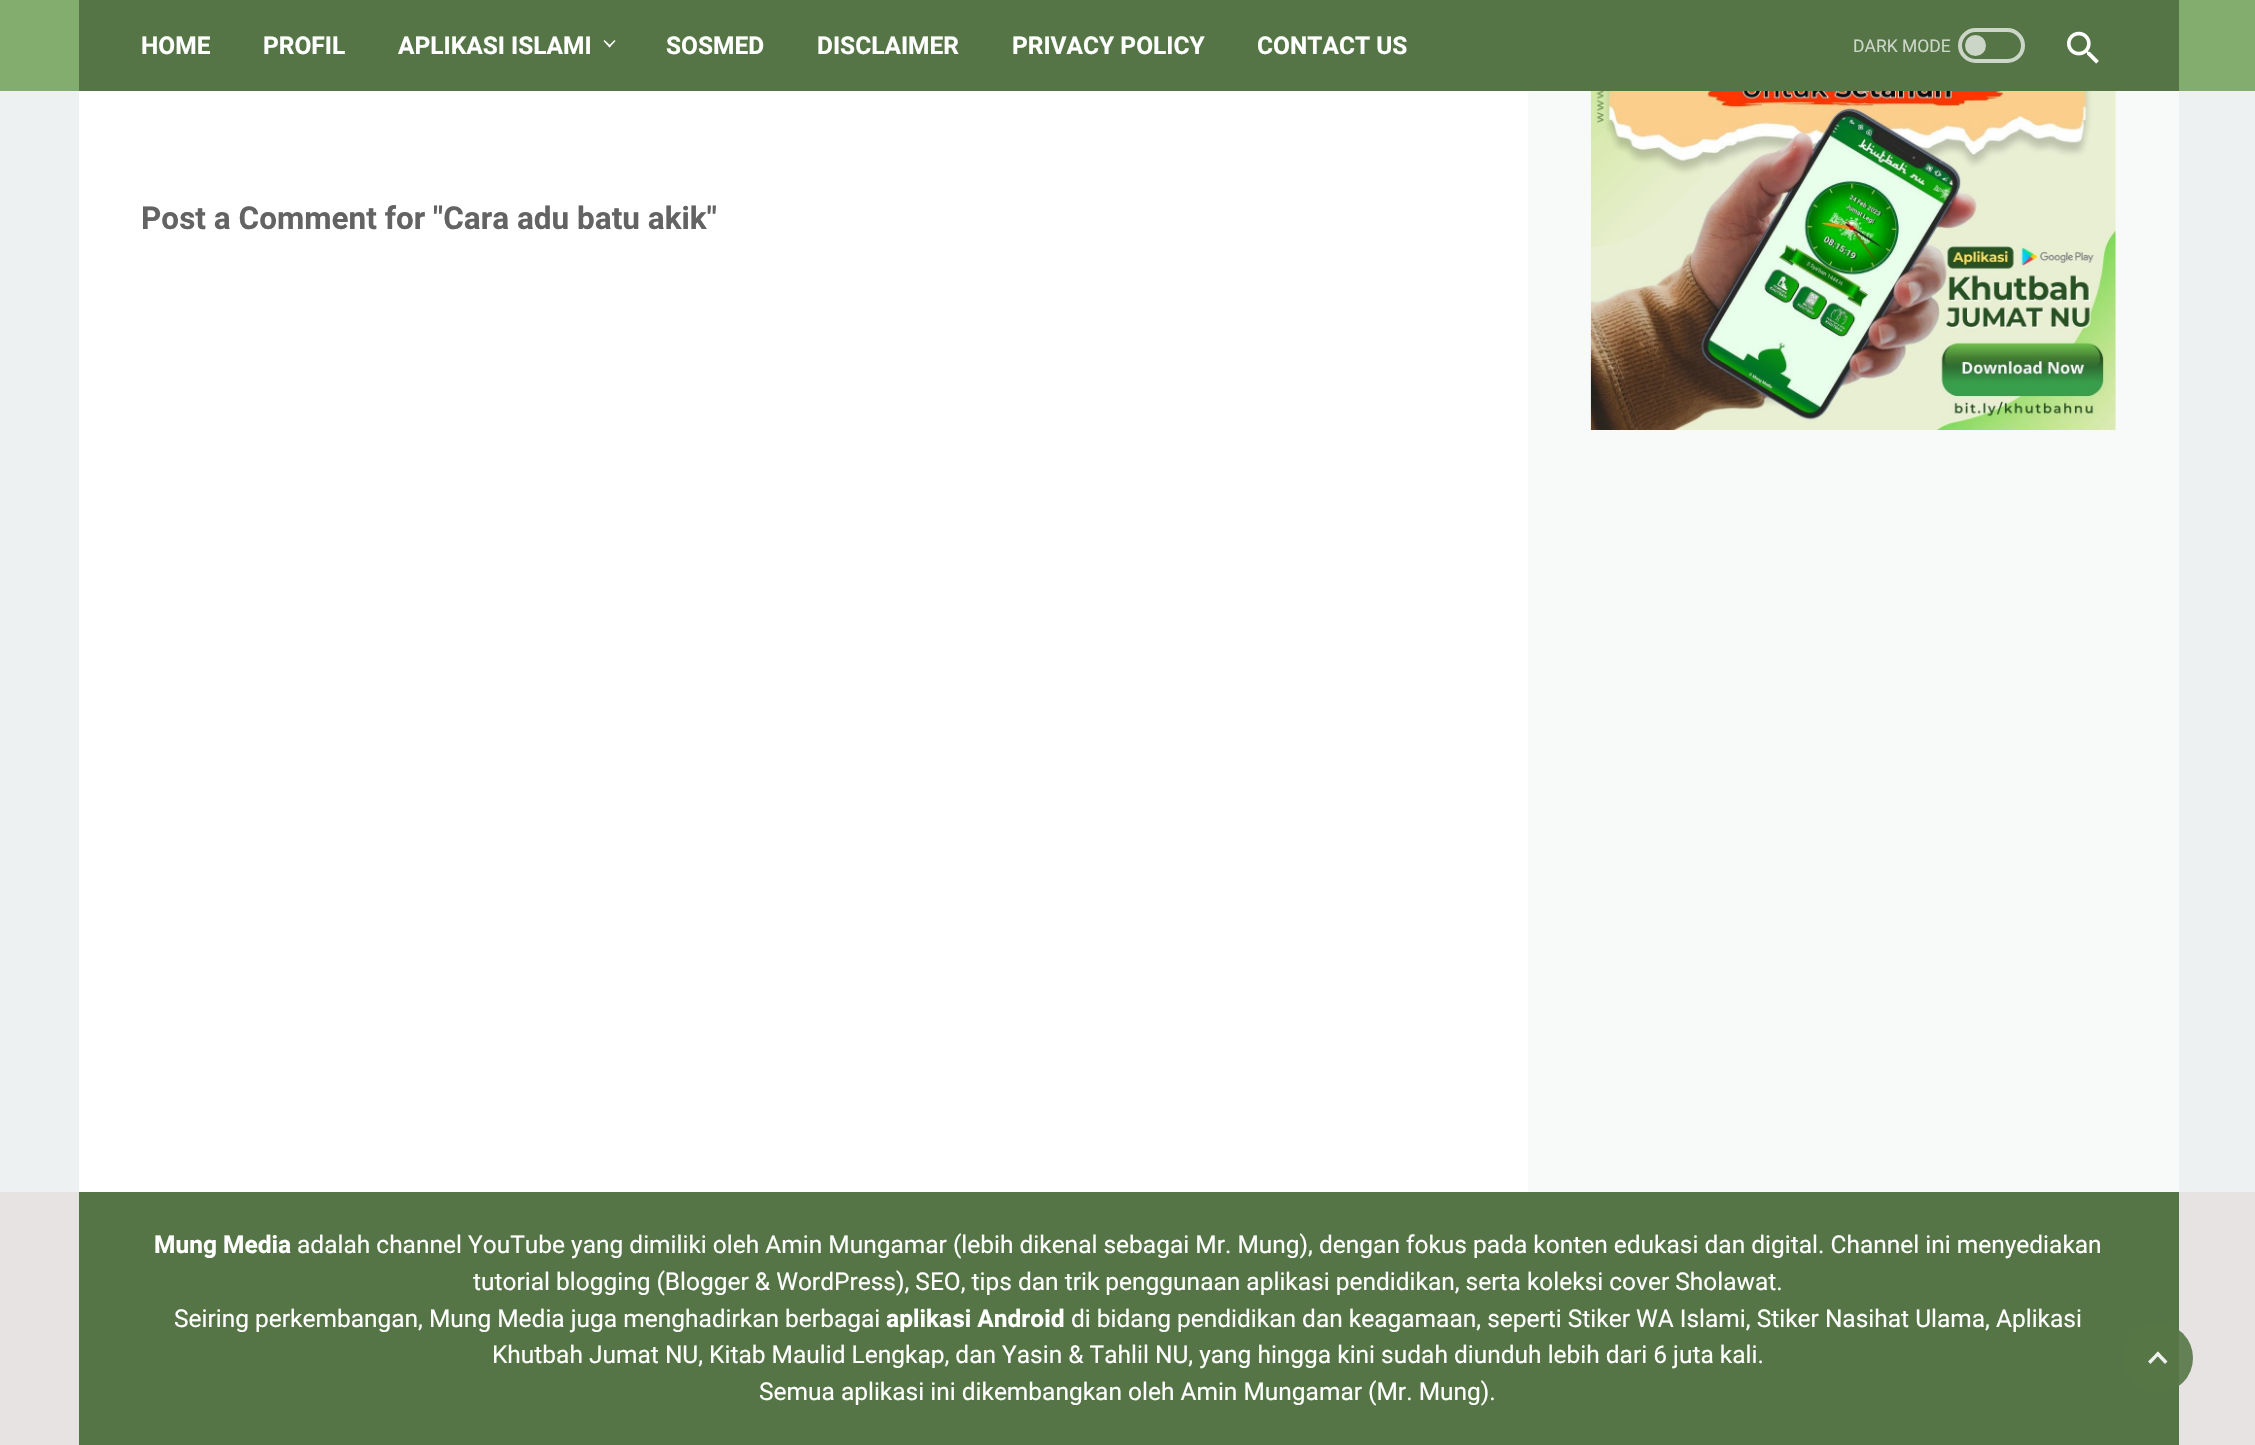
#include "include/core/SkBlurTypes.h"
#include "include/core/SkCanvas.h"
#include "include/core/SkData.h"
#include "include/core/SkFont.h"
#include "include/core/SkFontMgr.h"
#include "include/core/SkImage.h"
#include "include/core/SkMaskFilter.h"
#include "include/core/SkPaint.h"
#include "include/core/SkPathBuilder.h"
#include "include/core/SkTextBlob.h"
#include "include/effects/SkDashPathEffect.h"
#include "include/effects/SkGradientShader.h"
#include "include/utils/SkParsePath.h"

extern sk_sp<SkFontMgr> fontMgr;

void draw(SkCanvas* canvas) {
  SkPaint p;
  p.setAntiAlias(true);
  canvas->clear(SkColorSetRGB(237, 241, 242));
  p.setColor(SkColorSetRGB(131, 172, 111));
  canvas->drawRect(SkRect::MakeLTRB(0, 0, 2255, 91), p);
  p.setColor(SkColorSetRGB(85, 117, 70));
  canvas->drawRect(SkRect::MakeLTRB(79, 0, 2179, 91), p);
  p.setColor(SK_ColorWHITE);
  canvas->drawPath(SkPathBuilder().moveTo(608.5f, 46).lineTo(614.5f, 40).lineTo(615.5f, 41).lineTo(609.5f, 47.5f).close().detach(), p);
  canvas->drawPath(SkPathBuilder().moveTo(603.5f, 41).lineTo(604.5f, 40).lineTo(611, 46).lineTo(609.5f, 47.5f).close().detach(), p);
  p.setStyle(SkPaint::kStroke_Style);
  p.setStrokeWidth(4);
  p.setColor(SkColorSetRGB(204, 214, 200));
  canvas->drawRoundRect(SkRect::MakeLTRB(1960, 30, 2023, 61), 15.5f, 15.5f, p);
  p.setStyle(SkPaint::kFill_Style);
  canvas->drawCircle(1975.5f, 45.5f, 10.5f, p);
  canvas->drawImageRect(SkImages::DeferredFromEncodedData(SkData::MakeFromFileName("images/1.png")), SkRect::MakeLTRB(2067, 31, 2099, 64), SkSamplingOptions());
  p.setColor(SK_ColorWHITE);
  canvas->drawRect(SkRect::MakeLTRB(79, 91, 1528, 1192), p);
  p.setColor(SkColorSetRGB(248, 250, 250));
  canvas->drawRect(SkRect::MakeLTRB(1528, 91, 2179, 1192), p);
  canvas->drawImageRect(SkImages::DeferredFromEncodedData(SkData::MakeFromFileName("images/2.png")), SkRect::MakeLTRB(1590, 91, 2116, 430), SkSamplingOptions());
  p.setColor(SkColorSetRGB(231, 227, 227));
  canvas->drawRect(SkRect::MakeLTRB(0, 1192, 2255, 1445), p);
  p.setColor(SkColorSetRGB(85, 117, 70));
  canvas->drawRect(SkRect::MakeLTRB(79, 1192, 2179, 1445), p);
  p.setColor(SkColorSetARGB(230, 85, 117, 70));
  canvas->drawCircle(2158, 1358, 35, p);
  p.setColor(SkColorSetRGB(238, 241, 237));
  canvas->drawPath(SkPathBuilder().moveTo(2148, 1361.5f).lineTo(2158, 1351.5f).lineTo(2160, 1354).lineTo(2150.5f, 1364).close().detach(), p);
  canvas->drawPath(SkPathBuilder().moveTo(2155.5f, 1354).lineTo(2158, 1351.5f).lineTo(2167.5f, 1361.5f).lineTo(2165, 1364).close().detach(), p);
  SkFont font1(fontMgr->matchFamilyStyle("Roboto", SkFontStyle::Bold()), 24.5f);
  font1.setSubpixel(true);
  p.setColor(SK_ColorWHITE);
  canvas->drawString("HOME", 141, 54, font1, p);
  canvas->drawString("PROFIL", 263, 54, font1, p);
  canvas->drawString("APLIKASI ISLAMI", 398, 54, font1, p);
  canvas->drawString("SOSMED", 666, 54, font1, p);
  canvas->drawString("DISCLAIMER", 817, 54, font1, p);
  canvas->drawString("PRIVACY POLICY", 1012, 54, font1, p);
  canvas->drawString("CONTACT US", 1257, 54, font1, p);
  SkFont font2(fontMgr->matchFamilyStyle("Roboto", SkFontStyle::Normal()), 17.5f);
  font2.setSubpixel(true);
  p.setColor(SkColorSetRGB(204, 214, 200));
  canvas->drawString("DARK MODE", 1853, 52, font2, p);
  SkFont font3(fontMgr->matchFamilyStyle("Roboto", SkFontStyle::Bold()), 31.5f);
  font3.setSubpixel(true);
  p.setColor(SkColorSetRGB(99, 99, 99));
  canvas->drawString("Post a Comment for \"Cara adu batu akik\"", 141, 229, font3, p);
  p.setColor(SK_ColorWHITE);
  canvas->drawString("Mung Media", 154, 1253, font1, p);
  SkFont font4(fontMgr->matchFamilyStyle("Roboto", SkFontStyle::Normal()), 24.5f);
  font4.setSubpixel(true);
  canvas->drawString("adalah channel YouTube yang dimiliki oleh Amin Mungamar (lebih dikenal sebagai Mr. Mung), dengan fokus pada konten edukasi dan digital. Channel ini menyediakan", 297, 1253, font4, p);
  canvas->drawString("tutorial blogging (Blogger & WordPress), SEO, tips dan trik penggunaan aplikasi pendidikan, serta koleksi cover Sholawat.", 473, 1290, font4, p);
  canvas->drawString("Seiring perkembangan, Mung Media juga menghadirkan berbagai", 174, 1327, font4, p);
  canvas->drawString("aplikasi Android", 886, 1327, font1, p);
  canvas->drawString("di bidang pendidikan dan keagamaan, seperti Stiker WA Islami, Stiker Nasihat Ulama, Aplikasi", 1071, 1327, font4, p);
  canvas->drawString("Khutbah Jumat NU, Kitab Maulid Lengkap, dan Yasin & Tahlil NU, yang hingga kini sudah diunduh lebih dari 6 juta kali.", 492, 1363, font4, p);
  canvas->drawString("Semua aplikasi ini dikembangkan oleh Amin Mungamar (Mr. Mung).", 759, 1400, font4, p);
}
